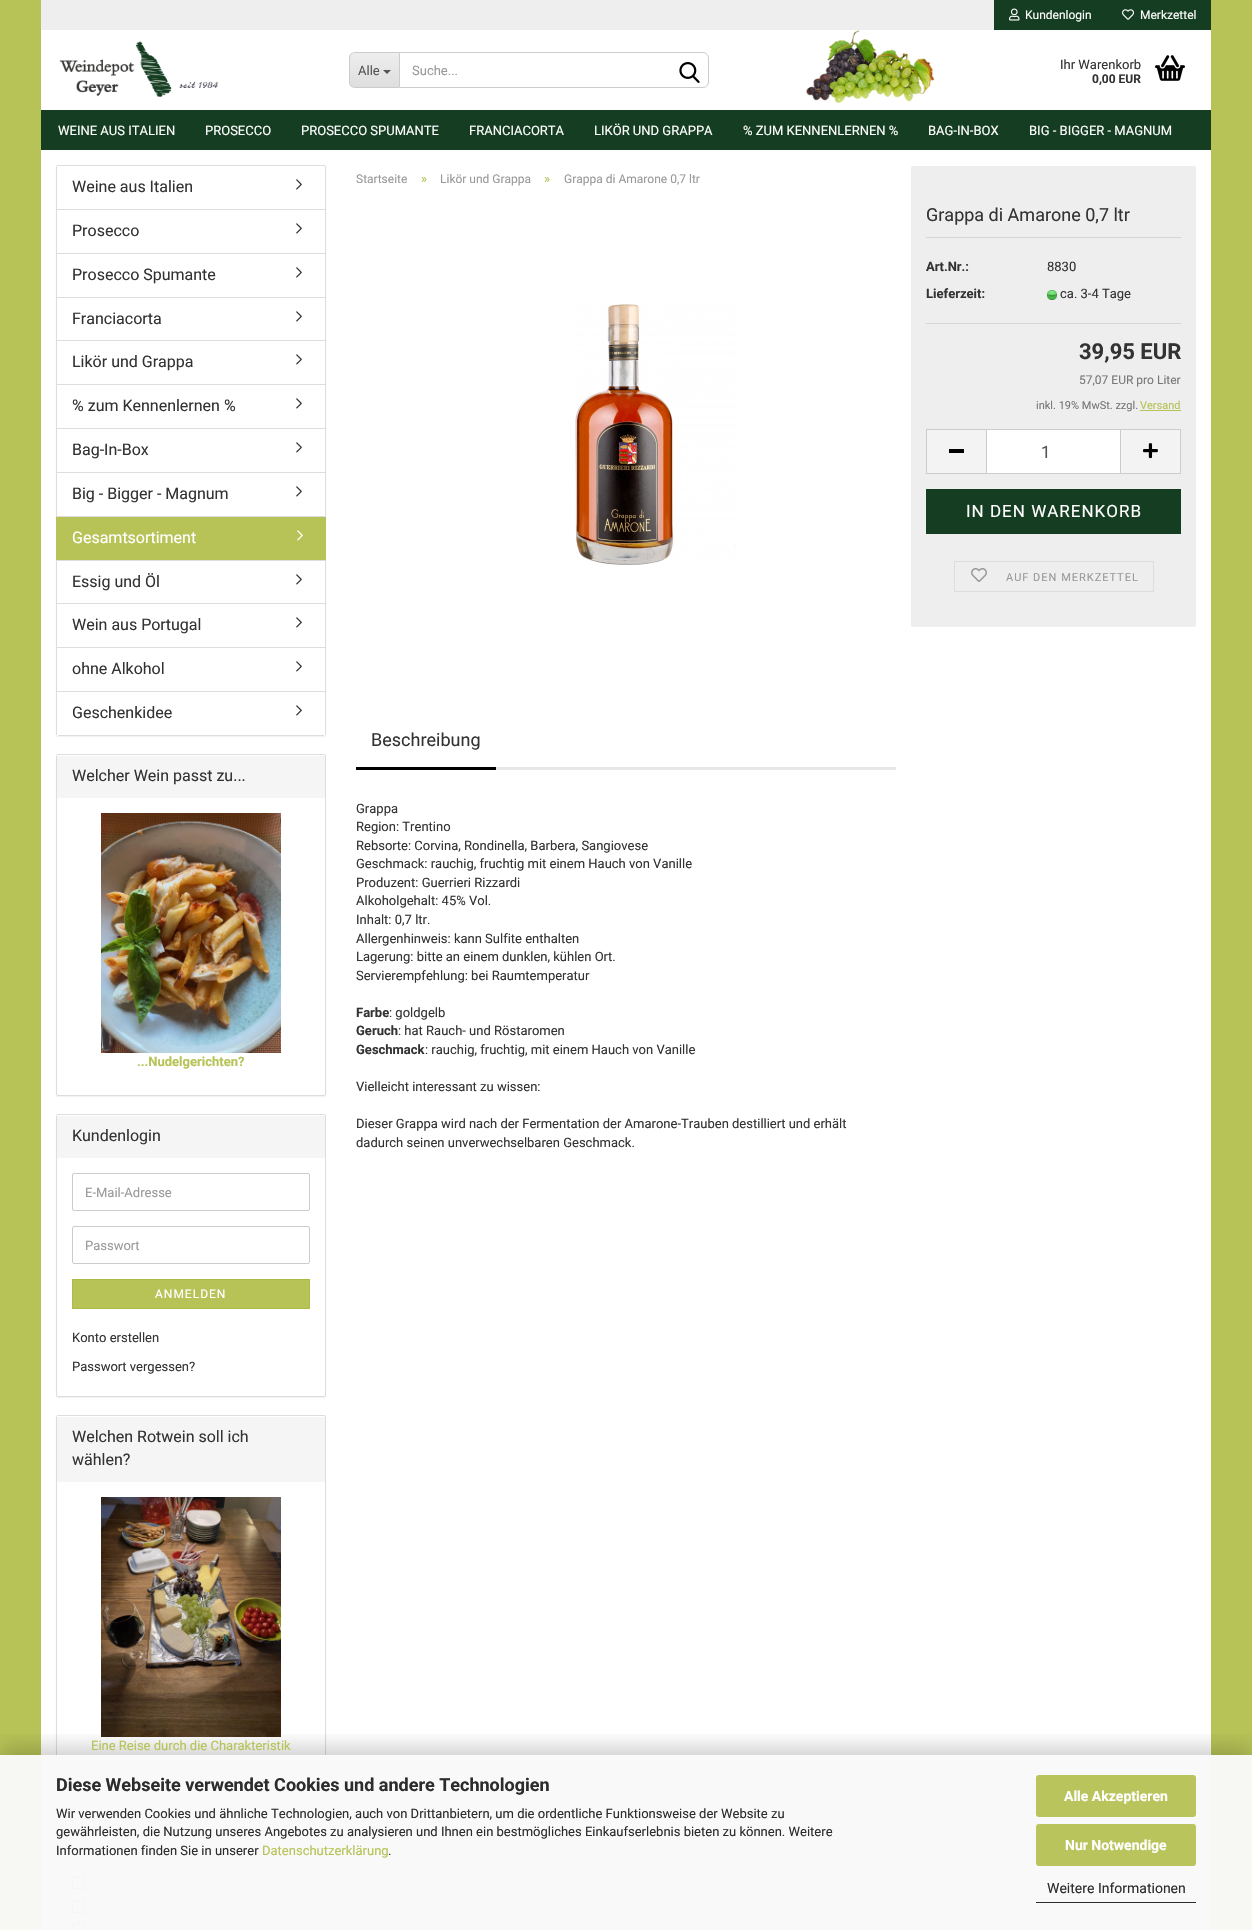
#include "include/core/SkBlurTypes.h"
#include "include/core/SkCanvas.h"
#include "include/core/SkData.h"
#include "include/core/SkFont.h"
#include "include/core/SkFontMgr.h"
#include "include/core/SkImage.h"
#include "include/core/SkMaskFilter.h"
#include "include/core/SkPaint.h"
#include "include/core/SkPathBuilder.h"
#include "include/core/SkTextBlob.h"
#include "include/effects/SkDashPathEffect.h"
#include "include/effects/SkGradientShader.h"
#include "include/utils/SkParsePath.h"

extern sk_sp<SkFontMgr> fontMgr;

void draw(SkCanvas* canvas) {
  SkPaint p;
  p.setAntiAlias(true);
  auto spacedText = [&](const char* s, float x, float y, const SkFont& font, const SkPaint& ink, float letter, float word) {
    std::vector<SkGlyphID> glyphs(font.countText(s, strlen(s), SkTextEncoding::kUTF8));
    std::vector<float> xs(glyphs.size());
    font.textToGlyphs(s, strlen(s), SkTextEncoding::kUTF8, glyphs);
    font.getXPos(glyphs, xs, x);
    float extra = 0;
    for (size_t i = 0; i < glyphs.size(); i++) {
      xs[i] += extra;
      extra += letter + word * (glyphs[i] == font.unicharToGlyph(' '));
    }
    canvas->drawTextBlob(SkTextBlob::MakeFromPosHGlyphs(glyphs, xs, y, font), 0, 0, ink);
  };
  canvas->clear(SkColorSetRGB(183, 195, 87));
  p.setColor(SK_ColorWHITE);
  canvas->drawRect(SkRect::MakeLTRB(41, 30, 1211, 1930), p);
  p.setColor(SkColorSetRGB(238, 238, 238));
  canvas->drawRect(SkRect::MakeLTRB(41, 0, 994, 30), p);
  p.setColor(SkColorSetRGB(21, 61, 33));
  canvas->drawRect(SkRect::MakeLTRB(994, 0, 1211, 30), p);
  canvas->drawImageRect(SkImages::DeferredFromEncodedData(SkData::MakeFromFileName("images/1.png")), SkRect::MakeLTRB(1009, 8, 1020, 21), SkSamplingOptions());
  canvas->drawImageRect(SkImages::DeferredFromEncodedData(SkData::MakeFromFileName("images/2.png")), SkRect::MakeLTRB(1122, 9, 1134, 20), SkSamplingOptions());
  canvas->drawImageRect(SkImages::DeferredFromEncodedData(SkData::MakeFromFileName("images/3.png")), SkRect::MakeLTRB(59, 41, 218, 97), SkSamplingOptions());
  canvas->save();
  canvas->clipPath(SkPathBuilder().moveTo(355, 52).lineTo(399, 52).lineTo(399, 88).lineTo(355, 88).cubicTo(351.5f, 88, 349, 85.5f, 349, 82).lineTo(349, 58).cubicTo(349, 54.5f, 351.5f, 52, 355, 52).close().detach(), true);
  {
    const SkColor colors[] = {SkColorSetRGB(238, 238, 238), SkColorSetRGB(222, 222, 222)};
    const float stops[] = {0, 1};
    const SkPoint ends[] = {{375, 53}, {375, 87}};
    p.setShader(SkGradientShader::MakeLinear(ends, colors, stops, 2, SkTileMode::kClamp));
    p.setAlpha(255);
  }
  canvas->drawRect(SkRect::MakeLTRB(349, 53, 399, 87), p);
  canvas->restore();
  p.setShader(nullptr);
  p.setColor(SkColorSetRGB(204, 204, 204));
  canvas->drawPath(SkPathBuilder(SkPathFillType::kEvenOdd).moveTo(355, 52).lineTo(399, 52).lineTo(399, 88).lineTo(355, 88).cubicTo(352, 88, 349, 85, 349, 82).lineTo(349, 58).cubicTo(349, 55, 352, 52, 355, 52).close().moveTo(355, 53).lineTo(399, 53).lineTo(399, 87).lineTo(355, 87).cubicTo(352, 87, 350, 85, 350, 82).lineTo(350, 58).cubicTo(350, 55, 352, 53, 355, 53).close().detach(), p);
  p.setColor(SkColorSetRGB(85, 85, 85));
  canvas->drawPath(SkPathBuilder().moveTo(383, 70).lineTo(391, 70).lineTo(387, 74).close().detach(), p);
  p.setStyle(SkPaint::kStroke_Style);
  p.setStrokeWidth(1);
  p.setColor(SkColorSetRGB(204, 204, 204));
  canvas->drawPath(SkPathBuilder().moveTo(399.5f, 52.5f).lineTo(703, 52.5f).cubicTo(706, 52.5f, 708.5f, 55, 708.5f, 58).lineTo(708.5f, 82).cubicTo(708.5f, 85, 706, 87.5f, 703, 87.5f).lineTo(399.5f, 87.5f).close().detach(), p);
  canvas->drawImageRect(SkImages::DeferredFromEncodedData(SkData::MakeFromFileName("images/4.png")), SkRect::MakeLTRB(679, 62, 700, 83), SkSamplingOptions());
  canvas->drawImageRect(SkImages::DeferredFromEncodedData(SkData::MakeFromFileName("images/5.png")), SkRect::MakeLTRB(806, 30, 935, 104), SkSamplingOptions());
  canvas->drawImageRect(SkImages::DeferredFromEncodedData(SkData::MakeFromFileName("images/6.png")), SkRect::MakeLTRB(1155, 55, 1185, 81), SkSamplingOptions());
  p.setStyle(SkPaint::kFill_Style);
  p.setColor(SkColorSetRGB(21, 61, 33));
  canvas->drawRect(SkRect::MakeLTRB(41, 110, 1211, 150), p);
  p.setColor(SkColorSetARGB(13, 0, 0, 0));
  p.setMaskFilter(SkMaskFilter::MakeBlur(kNormal_SkBlurStyle, 0.5f));
  canvas->drawRoundRect(SkRect::MakeLTRB(56, 166, 326, 737), 2, 2, p);
  p.setMaskFilter(nullptr);
  p.setColor(SK_ColorWHITE);
  canvas->drawRoundRect(SkRect::MakeLTRB(56, 165, 326, 736), 2, 2, p);
  p.setColor(SkColorSetRGB(221, 221, 221));
  canvas->drawRect(SkRect::MakeLTRB(57, 165, 325, 166), p);
  canvas->drawRect(SkRect::MakeLTRB(325, 166, 326, 735), p);
  canvas->drawRect(SkRect::MakeLTRB(56, 166, 57, 735), p);
  canvas->drawRect(SkRect::MakeLTRB(57, 209, 325, 210), p);
  canvas->drawImageRect(SkImages::DeferredFromEncodedData(SkData::MakeFromFileName("images/7.png")), SkRect::MakeLTRB(296, 179, 302, 190), SkSamplingOptions());
  canvas->drawRect(SkRect::MakeLTRB(57, 253, 325, 254), p);
  canvas->drawImageRect(SkImages::DeferredFromEncodedData(SkData::MakeFromFileName("images/7.png")), SkRect::MakeLTRB(296, 223, 302, 234), SkSamplingOptions());
  canvas->drawRect(SkRect::MakeLTRB(57, 297, 325, 298), p);
  canvas->drawImageRect(SkImages::DeferredFromEncodedData(SkData::MakeFromFileName("images/7.png")), SkRect::MakeLTRB(296, 267, 302, 278), SkSamplingOptions());
  canvas->drawRect(SkRect::MakeLTRB(57, 340, 325, 341), p);
  canvas->drawImageRect(SkImages::DeferredFromEncodedData(SkData::MakeFromFileName("images/7.png")), SkRect::MakeLTRB(296, 311, 302, 322), SkSamplingOptions());
  canvas->drawRect(SkRect::MakeLTRB(57, 384, 325, 385), p);
  canvas->drawImageRect(SkImages::DeferredFromEncodedData(SkData::MakeFromFileName("images/7.png")), SkRect::MakeLTRB(296, 354, 302, 365), SkSamplingOptions());
  canvas->drawRect(SkRect::MakeLTRB(57, 428, 325, 429), p);
  canvas->drawImageRect(SkImages::DeferredFromEncodedData(SkData::MakeFromFileName("images/7.png")), SkRect::MakeLTRB(296, 398, 302, 409), SkSamplingOptions());
  canvas->drawRect(SkRect::MakeLTRB(57, 472, 325, 473), p);
  canvas->drawImageRect(SkImages::DeferredFromEncodedData(SkData::MakeFromFileName("images/7.png")), SkRect::MakeLTRB(296, 442, 302, 453), SkSamplingOptions());
  canvas->drawRect(SkRect::MakeLTRB(57, 516, 325, 517), p);
  canvas->drawImageRect(SkImages::DeferredFromEncodedData(SkData::MakeFromFileName("images/7.png")), SkRect::MakeLTRB(296, 486, 302, 497), SkSamplingOptions());
  canvas->drawRect(SkRect::MakeLTRB(57, 560, 325, 561), p);
  p.setColor(SkColorSetRGB(183, 195, 87));
  canvas->drawRect(SkRect::MakeLTRB(56, 517, 326, 560), p);
  canvas->drawImageRect(SkImages::DeferredFromEncodedData(SkData::MakeFromFileName("images/8.png")), SkRect::MakeLTRB(297, 530, 303, 541), SkSamplingOptions());
  p.setColor(SkColorSetRGB(221, 221, 221));
  canvas->drawRect(SkRect::MakeLTRB(57, 603, 325, 604), p);
  canvas->drawImageRect(SkImages::DeferredFromEncodedData(SkData::MakeFromFileName("images/7.png")), SkRect::MakeLTRB(296, 574, 302, 585), SkSamplingOptions());
  canvas->drawRect(SkRect::MakeLTRB(57, 647, 325, 648), p);
  canvas->drawImageRect(SkImages::DeferredFromEncodedData(SkData::MakeFromFileName("images/7.png")), SkRect::MakeLTRB(296, 617, 302, 628), SkSamplingOptions());
  canvas->drawRect(SkRect::MakeLTRB(57, 691, 325, 692), p);
  canvas->drawImageRect(SkImages::DeferredFromEncodedData(SkData::MakeFromFileName("images/7.png")), SkRect::MakeLTRB(296, 661, 302, 672), SkSamplingOptions());
  canvas->drawRect(SkRect::MakeLTRB(58, 735, 324, 736), p);
  canvas->drawImageRect(SkImages::DeferredFromEncodedData(SkData::MakeFromFileName("images/7.png")), SkRect::MakeLTRB(296, 705, 302, 716), SkSamplingOptions());
  p.setColor(SkColorSetARGB(13, 0, 0, 0));
  p.setMaskFilter(SkMaskFilter::MakeBlur(kNormal_SkBlurStyle, 0.5f));
  canvas->drawRoundRect(SkRect::MakeLTRB(56, 755, 326, 1097), 2, 2, p);
  p.setMaskFilter(nullptr);
  p.setColor(SK_ColorWHITE);
  canvas->drawRoundRect(SkRect::MakeLTRB(56.5f, 754.5f, 325.5f, 1095.5f), 1.5f, 1.5f, p);
  p.setStyle(SkPaint::kStroke_Style);
  p.setColor(SkColorSetRGB(221, 221, 221));
  canvas->drawRoundRect(SkRect::MakeLTRB(56.5f, 754.5f, 325.5f, 1095.5f), 1.5f, 1.5f, p);
  p.setStyle(SkPaint::kFill_Style);
  p.setColor(SkColorSetRGB(245, 245, 245));
  canvas->drawPath(SkPathBuilder().moveTo(58, 755).lineTo(324, 755).cubicTo(324.5f, 755, 325, 755.5f, 325, 756).lineTo(325, 798).lineTo(57, 798).lineTo(57, 756).cubicTo(57, 755.5f, 57.5f, 755, 58, 755).close().detach(), p);
  p.setColor(SK_ColorWHITE);
  canvas->drawPath(SkPathBuilder().moveTo(58, 756).lineTo(324, 756).cubicTo(325, 756, 325, 756, 325, 757).cubicTo(325, 756, 325, 755, 324, 755).lineTo(57, 755).lineTo(57, 757).close().detach(), p);
  canvas->drawImageRect(SkImages::DeferredFromEncodedData(SkData::MakeFromFileName("images/9.png")), SkRect::MakeLTRB(101, 813, 281, 1053), SkSamplingOptions());
  p.setColor(SkColorSetARGB(13, 0, 0, 0));
  p.setMaskFilter(SkMaskFilter::MakeBlur(kNormal_SkBlurStyle, 0.5f));
  canvas->drawRoundRect(SkRect::MakeLTRB(56, 1115, 326, 1398), 2, 2, p);
  p.setMaskFilter(nullptr);
  p.setColor(SK_ColorWHITE);
  canvas->drawRoundRect(SkRect::MakeLTRB(56.5f, 1114.5f, 325.5f, 1396.5f), 1.5f, 1.5f, p);
  p.setStyle(SkPaint::kStroke_Style);
  p.setColor(SkColorSetRGB(221, 221, 221));
  canvas->drawRoundRect(SkRect::MakeLTRB(56.5f, 1114.5f, 325.5f, 1396.5f), 1.5f, 1.5f, p);
  p.setStyle(SkPaint::kFill_Style);
  p.setColor(SkColorSetRGB(245, 245, 245));
  canvas->drawPath(SkPathBuilder().moveTo(58, 1115).lineTo(324, 1115).cubicTo(324.5f, 1115, 325, 1115.5f, 325, 1116).lineTo(325, 1158).lineTo(57, 1158).lineTo(57, 1116).cubicTo(57, 1115.5f, 57.5f, 1115, 58, 1115).close().detach(), p);
  p.setColor(SK_ColorWHITE);
  canvas->drawPath(SkPathBuilder().moveTo(58, 1116).lineTo(324, 1116).cubicTo(325, 1116, 325, 1116, 325, 1117).cubicTo(325, 1116, 325, 1115, 324, 1115).lineTo(57, 1115).lineTo(57, 1117).close().detach(), p);
  p.setStyle(SkPaint::kStroke_Style);
  p.setColor(SkColorSetRGB(204, 204, 204));
  canvas->drawRoundRect(SkRect::MakeLTRB(72.5f, 1173.5f, 309.5f, 1210.5f), 1.5f, 1.5f, p);
  canvas->drawRoundRect(SkRect::MakeLTRB(72.5f, 1226.5f, 309.5f, 1263.5f), 1.5f, 1.5f, p);
  p.setStyle(SkPaint::kFill_Style);
  p.setColor(SkColorSetRGB(183, 195, 87));
  canvas->drawRect(SkRect::MakeLTRB(72.5f, 1279.5f, 309.5f, 1308.5f), p);
  p.setStyle(SkPaint::kStroke_Style);
  p.setColor(SkColorSetRGB(175, 188, 68));
  canvas->drawRect(SkRect::MakeLTRB(72.5f, 1279.5f, 309.5f, 1308.5f), p);
  p.setStyle(SkPaint::kFill_Style);
  p.setColor(SkColorSetARGB(13, 0, 0, 0));
  p.setMaskFilter(SkMaskFilter::MakeBlur(kNormal_SkBlurStyle, 0.5f));
  canvas->drawRoundRect(SkRect::MakeLTRB(56, 1416, 326, 1773), 2, 2, p);
  p.setMaskFilter(nullptr);
  p.setColor(SK_ColorWHITE);
  canvas->drawRoundRect(SkRect::MakeLTRB(56.5f, 1415.5f, 325.5f, 1771.5f), 1.5f, 1.5f, p);
  p.setStyle(SkPaint::kStroke_Style);
  p.setColor(SkColorSetRGB(221, 221, 221));
  canvas->drawRoundRect(SkRect::MakeLTRB(56.5f, 1415.5f, 325.5f, 1771.5f), 1.5f, 1.5f, p);
  p.setStyle(SkPaint::kFill_Style);
  p.setColor(SkColorSetRGB(245, 245, 245));
  canvas->drawPath(SkPathBuilder().moveTo(58, 1416).lineTo(324, 1416).cubicTo(324.5f, 1416, 325, 1416.5f, 325, 1417).lineTo(325, 1482).lineTo(57, 1482).lineTo(57, 1417).cubicTo(57, 1416.5f, 57.5f, 1416, 58, 1416).close().detach(), p);
  p.setColor(SK_ColorWHITE);
  canvas->drawPath(SkPathBuilder().moveTo(58, 1417).lineTo(324, 1417).cubicTo(325, 1417, 325, 1417, 325, 1418).cubicTo(325, 1417, 325, 1416, 324, 1416).lineTo(57, 1416).lineTo(57, 1418).close().detach(), p);
  canvas->drawImageRect(SkImages::DeferredFromEncodedData(SkData::MakeFromFileName("images/10.png")), SkRect::MakeLTRB(101, 1497, 281, 1737), SkSamplingOptions());
  p.setStyle(SkPaint::kStroke_Style);
  p.setColor(SkColorSetRGB(221, 221, 221));
  canvas->drawRoundRect(SkRect::MakeLTRB(56.5f, 1790.5f, 325.5f, 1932.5f), 1.5f, 1.5f, p);
  p.setStyle(SkPaint::kFill_Style);
  p.setColor(SkColorSetRGB(238, 238, 238));
  canvas->drawRect(SkRect::MakeLTRB(57, 1791, 325, 1930), p);
  p.setColor(SK_ColorWHITE);
  canvas->drawRoundRect(SkRect::MakeLTRB(72.5f, 1876.5f, 84.5f, 1888.5f), 1.5f, 1.5f, p);
  p.setStyle(SkPaint::kStroke_Style);
  p.setColor(SkColorSetRGB(118, 118, 118));
  canvas->drawRoundRect(SkRect::MakeLTRB(72.5f, 1876.5f, 84.5f, 1888.5f), 1.5f, 1.5f, p);
  p.setStyle(SkPaint::kFill_Style);
  p.setColor(SK_ColorWHITE);
  canvas->drawRoundRect(SkRect::MakeLTRB(72.5f, 1900.5f, 84.5f, 1912.5f), 1.5f, 1.5f, p);
  p.setStyle(SkPaint::kStroke_Style);
  p.setColor(SkColorSetRGB(118, 118, 118));
  canvas->drawRoundRect(SkRect::MakeLTRB(72.5f, 1900.5f, 84.5f, 1912.5f), 1.5f, 1.5f, p);
  p.setStyle(SkPaint::kFill_Style);
  p.setColor(SK_ColorWHITE);
  canvas->drawRoundRect(SkRect::MakeLTRB(72.5f, 1923.5f, 84.5f, 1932.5f), 1.5f, 1.5f, p);
  p.setStyle(SkPaint::kStroke_Style);
  p.setColor(SkColorSetRGB(118, 118, 118));
  canvas->drawRoundRect(SkRect::MakeLTRB(72.5f, 1923.5f, 84.5f, 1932.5f), 1.5f, 1.5f, p);
  canvas->drawImageRect(SkImages::DeferredFromEncodedData(SkData::MakeFromFileName("images/11.png")), SkRect::MakeLTRB(575, 304, 736, 565), SkSamplingOptions());
  p.setStyle(SkPaint::kFill_Style);
  p.setColor(SkColorSetRGB(238, 238, 238));
  canvas->drawRoundRect(SkRect::MakeLTRB(911, 166, 1196, 627), 2, 2, p);
  p.setColor(SkColorSetRGB(213, 213, 213));
  canvas->drawRect(SkRect::MakeLTRB(926, 237, 1181, 238), p);
  canvas->drawRect(SkRect::MakeLTRB(926, 323, 1181, 324), p);
  canvas->drawImageRect(SkImages::DeferredFromEncodedData(SkData::MakeFromFileName("images/12.png")), SkRect::MakeLTRB(1047, 290, 1057, 300), SkSamplingOptions());
  p.setColor(SkColorSetRGB(183, 195, 87));
  canvas->drawRect(SkRect::MakeLTRB(1140, 410, 1181, 411), p);
  p.setColor(SkColorSetRGB(243, 243, 243));
  canvas->drawRect(SkRect::MakeLTRB(927, 430, 986, 473), p);
  p.setColor(SkColorSetRGB(204, 204, 204));
  canvas->drawRect(SkRect::MakeLTRB(926, 429, 986, 430), p);
  canvas->drawRect(SkRect::MakeLTRB(926, 473, 986, 474), p);
  canvas->drawRect(SkRect::MakeLTRB(926, 429, 927, 474), p);
  p.setColor(SK_ColorBLACK);
  canvas->drawRect(SkRect::MakeLTRB(949, 449, 964, 453), p);
  p.setColor(SK_ColorWHITE);
  canvas->drawRect(SkRect::MakeLTRB(986.5f, 429.5f, 1120.5f, 473.5f), p);
  p.setStyle(SkPaint::kStroke_Style);
  p.setColor(SkColorSetRGB(204, 204, 204));
  canvas->drawRect(SkRect::MakeLTRB(986.5f, 429.5f, 1120.5f, 473.5f), p);
  p.setStyle(SkPaint::kFill_Style);
  p.setColor(SkColorSetRGB(243, 243, 243));
  canvas->drawRect(SkRect::MakeLTRB(1121, 430, 1180, 473), p);
  p.setColor(SkColorSetRGB(204, 204, 204));
  canvas->drawRect(SkRect::MakeLTRB(1121, 429, 1181, 430), p);
  canvas->drawRect(SkRect::MakeLTRB(1180, 429, 1181, 474), p);
  canvas->drawRect(SkRect::MakeLTRB(1121, 473, 1181, 474), p);
  canvas->drawImageRect(SkImages::DeferredFromEncodedData(SkData::MakeFromFileName("images/13.png")), SkRect::MakeLTRB(1143, 443, 1158, 459), SkSamplingOptions());
  p.setColor(SkColorSetRGB(21, 61, 33));
  canvas->drawRect(SkRect::MakeLTRB(926, 489, 1181, 534), p);
  p.setStyle(SkPaint::kStroke_Style);
  p.setColor(SkColorSetRGB(221, 221, 221));
  canvas->drawRect(SkRect::MakeLTRB(954.5f, 561.5f, 1153.5f, 591.5f), p);
  canvas->drawImageRect(SkImages::DeferredFromEncodedData(SkData::MakeFromFileName("images/14.png")), SkRect::MakeLTRB(971, 568, 987, 582), SkSamplingOptions());
  p.setStyle(SkPaint::kFill_Style);
  p.setColor(SkColorSetRGB(231, 231, 231));
  canvas->drawRect(SkRect::MakeLTRB(496, 767, 896, 770), p);
  p.setColor(SK_ColorBLACK);
  canvas->drawRect(SkRect::MakeLTRB(356, 767, 496, 770), p);
  canvas->save();
  canvas->clipRect(SkRect::MakeLTRB(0, 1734, 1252, 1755));
  p.setColor(SkColorSetARGB(48, 0, 0, 0));
  p.setMaskFilter(SkMaskFilter::MakeBlur(kNormal_SkBlurStyle, 10));
  canvas->drawRect(SkRect::MakeLTRB(0, 1747, 1252, 1922), p);
  p.setMaskFilter(nullptr);
  canvas->restore();
  p.setColor(SkColorSetARGB(247, 249, 249, 249));
  canvas->drawRect(SkRect::MakeLTRB(0, 1755, 1252, 1930), p);
  p.setColor(SkColorSetRGB(185, 197, 92));
  canvas->drawRoundRect(SkRect::MakeLTRB(1036, 1775, 1196, 1817), 3, 3, p);
  canvas->drawRoundRect(SkRect::MakeLTRB(1036, 1824, 1196, 1866), 3, 3, p);
  p.setColor(SkColorSetRGB(45, 45, 45));
  canvas->drawRect(SkRect::MakeLTRB(1036, 1902, 1196, 1903), p);
  SkFont font1(fontMgr->matchFamilyStyle("Roboto", SkFontStyle::Normal()), 12);
  font1.setSubpixel(true);
  p.setColor(SK_ColorWHITE);
  canvas->drawString("Kundenlogin", 1025, 19, font1, p);
  canvas->drawString("Merkzettel", 1140, 19, font1, p);
  SkFont font2(fontMgr->matchFamilyStyle("Roboto", SkFontStyle::Normal()), 13);
  font2.setSubpixel(true);
  p.setColor(SkColorSetRGB(85, 85, 85));
  canvas->drawString("Alle", 358, 75, font2, p);
  p.setColor(SkColorSetRGB(153, 153, 153));
  canvas->drawString("Suche...", 412, 75, font2, p);
  p.setColor(SkColorSetRGB(51, 51, 51));
  canvas->drawString("Ihr Warenkorb", 1060, 69, font2, p);
  SkFont font3(fontMgr->matchFamilyStyle("Roboto", SkFontStyle::Bold()), 12);
  font3.setSubpixel(true);
  canvas->drawString("0,00 EUR", 1092, 83, font3, p);
  p.setColor(SK_ColorWHITE);
  canvas->drawString("WEINE AUS ITALIEN", 58, 135, font2, p);
  canvas->drawString("PROSECCO", 205, 135, font2, p);
  canvas->drawString("PROSECCO SPUMANTE", 301, 135, font2, p);
  canvas->drawString("FRANCIACORTA", 469, 135, font2, p);
  canvas->drawString("LIKÖR UND GRAPPA", 594, 135, font2, p);
  canvas->drawString("% ZUM KENNENLERNEN %", 743, 135, font2, p);
  canvas->drawString("BAG-IN-BOX", 928, 135, font2, p);
  canvas->drawString("BIG - BIGGER - MAGNUM", 1029, 135, font2, p);
  SkFont font4(fontMgr->matchFamilyStyle("Roboto", SkFontStyle::Normal()), 16);
  font4.setSubpixel(true);
  p.setColor(SkColorSetRGB(51, 51, 51));
  canvas->drawString("Weine aus Italien", 72, 192, font4, p);
  canvas->drawString("Prosecco", 72, 236, font4, p);
  canvas->drawString("Prosecco Spumante", 72, 280, font4, p);
  canvas->drawString("Franciacorta", 72, 324, font4, p);
  canvas->drawString("Likör und Grappa", 72, 367, font4, p);
  canvas->drawString("% zum Kennenlernen %", 72, 411, font4, p);
  canvas->drawString("Bag-In-Box", 72, 455, font4, p);
  canvas->drawString("Big - Bigger - Magnum", 72, 499, font4, p);
  p.setColor(SK_ColorWHITE);
  canvas->drawString("Gesamtsortiment", 72, 543, font4, p);
  p.setColor(SkColorSetRGB(51, 51, 51));
  canvas->drawString("Essig und Öl", 72, 587, font4, p);
  canvas->drawString("Wein aus Portugal", 72, 630, font4, p);
  canvas->drawString("ohne Alkohol", 72, 674, font4, p);
  canvas->drawString("Geschenkidee", 72, 718, font4, p);
  canvas->drawString("Welcher Wein passt zu...", 72, 781, font4, p);
  SkFont font5(fontMgr->matchFamilyStyle("Roboto", SkFontStyle::Bold()), 13);
  font5.setSubpixel(true);
  p.setColor(SkColorSetRGB(183, 195, 87));
  canvas->drawString("...Nudelgerichten?", 137, 1066, font5, p);
  p.setColor(SkColorSetRGB(51, 51, 51));
  canvas->drawString("Kundenlogin", 72, 1141, font4, p);
  p.setColor(SkColorSetRGB(153, 153, 153));
  canvas->drawString("E-Mail-Adresse", 85, 1197, font2, p);
  canvas->drawString("Passwort", 85, 1250, font2, p);
  p.setColor(SK_ColorWHITE);
  spacedText("ANMELDEN", 155, 1298, font1, p, 1, 0);
  p.setColor(SkColorSetRGB(51, 51, 51));
  canvas->drawString("Konto erstellen", 72, 1342, font2, p);
  canvas->drawString("Passwort vergessen?", 72, 1371, font2, p);
  canvas->drawString("Welchen Rotwein soll ich", 72, 1442, font4, p);
  canvas->drawString("wählen?", 72, 1465, font4, p);
  p.setColor(SkColorSetRGB(183, 195, 87));
  canvas->drawString("Eine Reise durch die Charakteristik", 91, 1750, font2, p);
  p.setColor(SkColorSetRGB(153, 153, 153));
  canvas->drawString("Startseite", 356, 183, font1, p);
  p.setColor(SkColorSetRGB(183, 195, 87));
  canvas->drawString("»", 421, 183, font2, p);
  p.setColor(SkColorSetRGB(153, 153, 153));
  canvas->drawString("Likör und Grappa", 440, 183, font1, p);
  p.setColor(SkColorSetRGB(183, 195, 87));
  canvas->drawString("»", 544, 183, font2, p);
  p.setColor(SkColorSetRGB(153, 153, 153));
  canvas->drawString("Grappa di Amarone 0,7 ltr", 564, 183, font1, p);
  SkFont font6(fontMgr->matchFamilyStyle("Roboto", SkFontStyle::Normal()), 18);
  font6.setSubpixel(true);
  p.setColor(SkColorSetRGB(51, 51, 51));
  canvas->drawString("Grappa di Amarone 0,7 ltr", 926, 221, font6, p);
  canvas->drawString("Art.Nr.:", 926, 271, font5, p);
  canvas->drawString("8830", 1047, 271, font2, p);
  canvas->drawString("Lieferzeit:", 926, 298, font5, p);
  canvas->drawString("ca. 3-4 Tage", 1060, 298, font2, p);
  SkFont font7(fontMgr->matchFamilyStyle("Roboto", SkFontStyle::Bold()), 22);
  font7.setSubpixel(true);
  canvas->drawString("39,95 EUR", 1079, 359, font7, p);
  p.setColor(SkColorSetRGB(119, 119, 119));
  canvas->drawString("57,07 EUR pro Liter", 1079, 384, font1, p);
  SkFont font8(fontMgr->matchFamilyStyle("Roboto", SkFontStyle::Normal()), 11);
  font8.setSubpixel(true);
  canvas->drawString("inkl. 19% MwSt. zzgl.", 1036, 409, font8, p);
  p.setColor(SkColorSetRGB(183, 195, 87));
  canvas->drawString("Versand", 1140, 409, font8, p);
  SkFont font9(fontMgr->matchFamilyStyle("Roboto", SkFontStyle::Normal()), 17);
  font9.setSubpixel(true);
  p.setColor(SkColorSetRGB(85, 85, 85));
  canvas->drawString("1", 1041, 458, font9, p);
  p.setColor(SK_ColorWHITE);
  spacedText("IN DEN WARENKORB", 966, 517, font9, p, 1, 0);
  p.setColor(SkColorSetRGB(153, 153, 153));
  spacedText("AUF DEN MERKZETTEL", 1006, 581, font8, p, 1, 0);
  p.setColor(SkColorSetRGB(51, 51, 51));
  canvas->drawString("Beschreibung", 371, 746, font6, p);
  canvas->drawString("Grappa", 356, 813, font2, p);
  canvas->drawString("Region: Trentino", 356, 831, font2, p);
  canvas->drawString("Rebsorte: Corvina, Rondinella, Barbera, Sangiovese", 356, 850, font2, p);
  canvas->drawString("Geschmack: rauchig, fruchtig mit einem Hauch von Vanille", 356, 868, font2, p);
  canvas->drawString("Produzent: Guerrieri Rizzardi", 356, 887, font2, p);
  canvas->drawString("Alkoholgehalt: 45% Vol.", 356, 905, font2, p);
  canvas->drawString("Inhalt: 0,7 ltr.", 356, 924, font2, p);
  canvas->drawString("Allergenhinweis: kann Sulfite enthalten", 356, 943, font2, p);
  canvas->drawString("Lagerung: bitte an einem dunklen, kühlen Ort.", 356, 961, font2, p);
  canvas->drawString("Servierempfehlung: bei Raumtemperatur", 356, 980, font2, p);
  canvas->drawString("Farbe", 356, 1017, font5, p);
  canvas->drawString(": goldgelb", 389, 1017, font2, p);
  canvas->drawString("Geruch", 356, 1035, font5, p);
  canvas->drawString(": hat Rauch- und Röstaromen", 398, 1035, font2, p);
  canvas->drawString("Geschmack", 356, 1054, font5, p);
  canvas->drawString(": rauchig, fruchtig, mit einem Hauch von Vanille", 425, 1054, font2, p);
  canvas->drawString("Vielleicht interessant zu wissen:", 356, 1091, font2, p);
  canvas->drawString("Dieser Grappa wird nach der Fermentation der Amarone-Trauben destilliert und erhält", 356, 1128, font2, p);
  canvas->drawString("dadurch seinen unverwechselbaren Geschmack.", 356, 1147, font2, p);
  SkFont font10(fontMgr->matchFamilyStyle("Roboto", SkFontStyle::Bold()), 18);
  font10.setSubpixel(true);
  p.setColor(SkColorSetRGB(44, 44, 44));
  canvas->drawString("Diese Webseite verwendet Cookies und andere Technologien", 56, 1791, font10, p);
  canvas->drawString("Wir verwenden Cookies und ähnliche Technologien, auch von Drittanbietern, um die ordentliche Funktionsweise der Website zu", 56, 1818, font2, p);
  canvas->drawString("gewährleisten, die Nutzung unseres Angebotes zu analysieren und Ihnen ein bestmögliches Einkaufserlebnis bieten zu können. Weitere", 56, 1836, font2, p);
  canvas->drawString("Informationen finden Sie in unserer", 56, 1855, font2, p);
  p.setColor(SkColorSetRGB(183, 195, 87));
  canvas->drawString("Datenschutzerklärung", 262, 1855, font2, p);
  p.setColor(SkColorSetRGB(44, 44, 44));
  canvas->drawString(".", 388, 1855, font2, p);
  SkFont font11(fontMgr->matchFamilyStyle("Roboto", SkFontStyle::Bold()), 14);
  font11.setSubpixel(true);
  p.setColor(SK_ColorWHITE);
  canvas->drawString("Alle Akzeptieren", 1064, 1801, font11, p);
  canvas->drawString("Nur Notwendige", 1065, 1850, font11, p);
  SkFont font12(fontMgr->matchFamilyStyle("Roboto", SkFontStyle::Normal()), 14);
  font12.setSubpixel(true);
  p.setColor(SkColorSetRGB(44, 44, 44));
  canvas->drawString("Weitere Informationen", 1047, 1893, font12, p);
}
